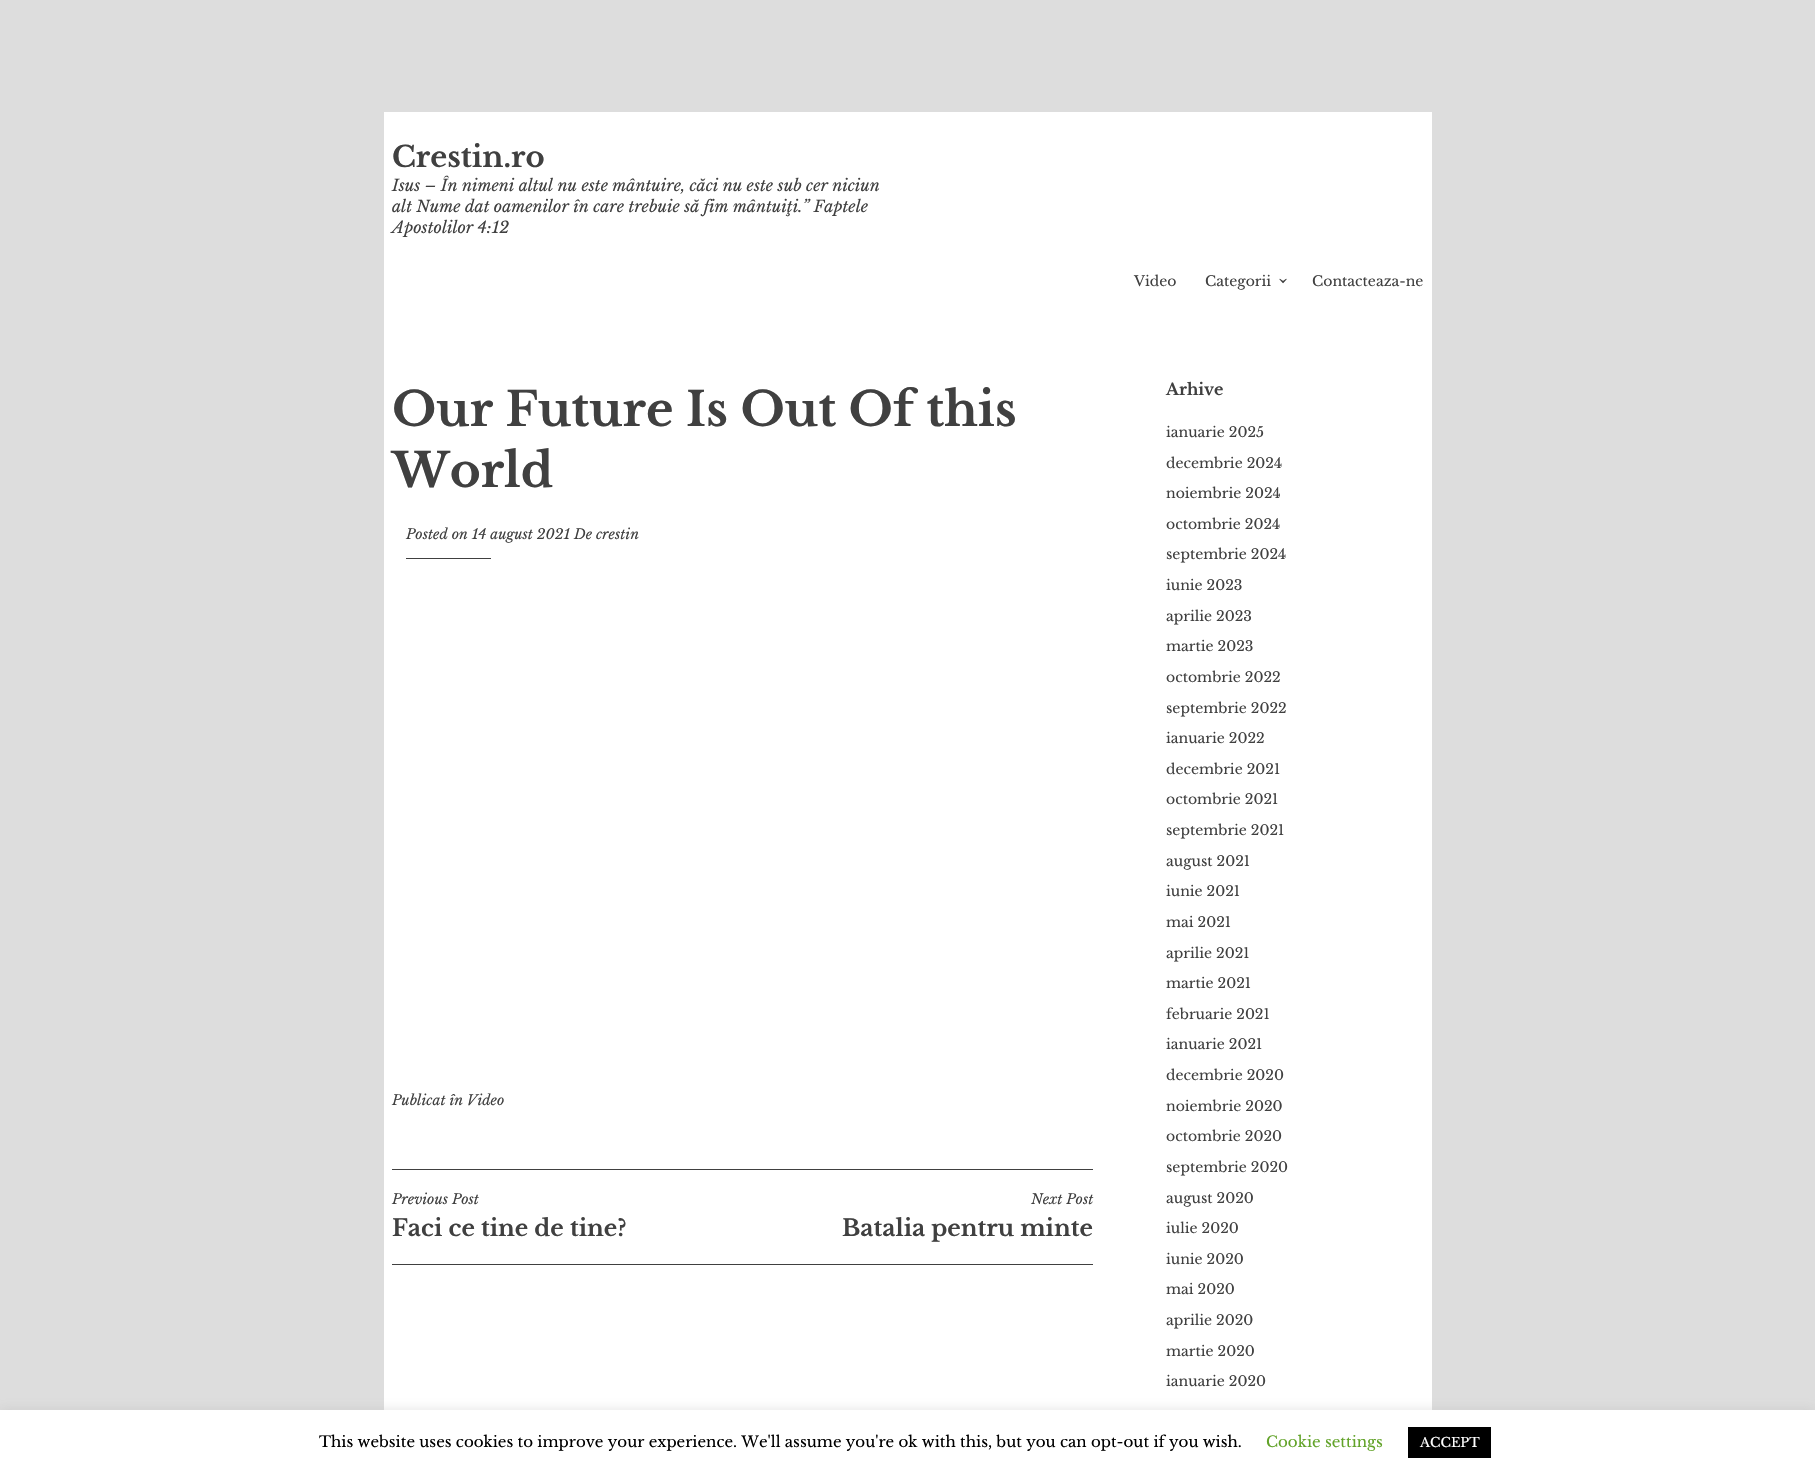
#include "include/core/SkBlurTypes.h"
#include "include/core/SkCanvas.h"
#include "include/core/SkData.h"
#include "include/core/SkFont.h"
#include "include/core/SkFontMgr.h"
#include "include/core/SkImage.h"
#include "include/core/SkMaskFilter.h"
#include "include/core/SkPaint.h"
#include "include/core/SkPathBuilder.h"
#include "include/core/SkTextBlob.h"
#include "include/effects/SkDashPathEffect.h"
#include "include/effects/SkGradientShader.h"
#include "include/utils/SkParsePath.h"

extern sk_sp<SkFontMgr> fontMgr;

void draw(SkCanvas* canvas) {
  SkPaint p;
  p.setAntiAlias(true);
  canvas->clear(SkColorSetRGB(221, 221, 221));
  p.setColor(SK_ColorWHITE);
  canvas->drawRect(SkRect::MakeLTRB(384, 112, 1432, 1410), p);
  p.setColor(SkColorSetRGB(64, 64, 64));
  canvas->drawRect(SkRect::MakeLTRB(406, 558, 491, 559), p);
  canvas->drawRect(SkRect::MakeLTRB(392, 1169, 1093, 1170), p);
  canvas->drawRect(SkRect::MakeLTRB(392, 1264, 1093, 1265), p);
  p.setColor(SkColorSetARGB(77, 172, 171, 171));
  p.setMaskFilter(SkMaskFilter::MakeBlur(kNormal_SkBlurStyle, 5));
  canvas->drawRect(SkRect::MakeLTRB(0, 1409, 1815, 1474), p);
  p.setMaskFilter(nullptr);
  p.setColor(SK_ColorWHITE);
  canvas->drawRect(SkRect::MakeLTRB(0, 1410, 1815, 1475), p);
  p.setColor(SK_ColorBLACK);
  canvas->drawRect(SkRect::MakeLTRB(1408, 1427, 1491, 1458), p);
  SkFont font1(fontMgr->matchFamilyStyle("Libre Baskerville", SkFontStyle::Bold()), 29);
  font1.setSubpixel(true);
  p.setColor(SkColorSetRGB(64, 64, 64));
  canvas->drawString("Crestin.ro", 392, 167, font1, p);
  SkFont font2(fontMgr->matchFamilyStyle("Libre Baskerville", SkFontStyle::Italic()), 16);
  font2.setSubpixel(true);
  canvas->drawString("Isus – În nimeni altul nu este mântuire, căci nu este sub cer niciun", 392, 191, font2, p);
  canvas->drawString("alt Nume dat oamenilor în care trebuie să fim mântuiţi.” Faptele", 392, 212, font2, p);
  canvas->drawString("Apostolilor 4:12", 392, 233, font2, p);
  SkFont font3(fontMgr->matchFamilyStyle("Libre Baskerville", SkFontStyle::Normal()), 14);
  font3.setSubpixel(true);
  canvas->drawString("Video", 1134, 286, font3, p);
  canvas->drawString("Categorii", 1205, 286, font3, p);
  SkFont font4(fontMgr->matchFamilyStyle("Libre Baskerville", SkFontStyle::Normal()), 23);
  font4.setSubpixel(true);
  canvas->save();
  canvas->rotate(90, 1277, 277);
  canvas->drawString("›", 1277, 277, font4, p);
  canvas->restore();
  canvas->drawString("Contacteaza-ne", 1312, 286, font3, p);
  SkFont font5(fontMgr->matchFamilyStyle("Libre Baskerville", SkFontStyle::Bold()), 47);
  font5.setSubpixel(true);
  canvas->drawString("Our Future Is Out Of this", 392, 426, font5, p);
  canvas->drawString("World", 392, 487, font5, p);
  SkFont font6(fontMgr->matchFamilyStyle("Libre Baskerville", SkFontStyle::Italic()), 14);
  font6.setSubpixel(true);
  canvas->drawString("Posted on 14 august 2021 De crestin", 406, 539, font6, p);
  canvas->drawString("Publicat în Video", 392, 1105, font6, p);
  canvas->drawString("Previous Post", 392, 1204, font6, p);
  SkFont font7(fontMgr->matchFamilyStyle("Libre Baskerville", SkFontStyle::Bold()), 23);
  font7.setSubpixel(true);
  canvas->drawString("Faci ce tine de tine?", 392, 1236, font7, p);
  canvas->drawString("Next Post", 1031, 1204, font6, p);
  canvas->drawString("Batalia pentru minte", 842, 1236, font7, p);
  SkFont font8(fontMgr->matchFamilyStyle("Libre Baskerville", SkFontStyle::Bold()), 16);
  font8.setSubpixel(true);
  canvas->drawString("Arhive", 1166, 395, font8, p);
  canvas->drawString("ianuarie 2025", 1166, 437, font3, p);
  canvas->drawString("decembrie 2024", 1166, 468, font3, p);
  canvas->drawString("noiembrie 2024", 1166, 498, font3, p);
  canvas->drawString("octombrie 2024", 1166, 529, font3, p);
  canvas->drawString("septembrie 2024", 1166, 559, font3, p);
  canvas->drawString("iunie 2023", 1166, 590, font3, p);
  canvas->drawString("aprilie 2023", 1166, 621, font3, p);
  canvas->drawString("martie 2023", 1166, 651, font3, p);
  canvas->drawString("octombrie 2022", 1166, 682, font3, p);
  canvas->drawString("septembrie 2022", 1166, 713, font3, p);
  canvas->drawString("ianuarie 2022", 1166, 743, font3, p);
  canvas->drawString("decembrie 2021", 1166, 774, font3, p);
  canvas->drawString("octombrie 2021", 1166, 804, font3, p);
  canvas->drawString("septembrie 2021", 1166, 835, font3, p);
  canvas->drawString("august 2021", 1166, 866, font3, p);
  canvas->drawString("iunie 2021", 1166, 896, font3, p);
  canvas->drawString("mai 2021", 1166, 927, font3, p);
  canvas->drawString("aprilie 2021", 1166, 958, font3, p);
  canvas->drawString("martie 2021", 1166, 988, font3, p);
  canvas->drawString("februarie 2021", 1166, 1019, font3, p);
  canvas->drawString("ianuarie 2021", 1166, 1049, font3, p);
  canvas->drawString("decembrie 2020", 1166, 1080, font3, p);
  canvas->drawString("noiembrie 2020", 1166, 1111, font3, p);
  canvas->drawString("octombrie 2020", 1166, 1141, font3, p);
  canvas->drawString("septembrie 2020", 1166, 1172, font3, p);
  canvas->drawString("august 2020", 1166, 1203, font3, p);
  canvas->drawString("iulie 2020", 1166, 1233, font3, p);
  canvas->drawString("iunie 2020", 1166, 1264, font3, p);
  canvas->drawString("mai 2020", 1166, 1294, font3, p);
  canvas->drawString("aprilie 2020", 1166, 1325, font3, p);
  canvas->drawString("martie 2020", 1166, 1356, font3, p);
  canvas->drawString("ianuarie 2020", 1166, 1386, font3, p);
  SkFont font9(fontMgr->matchFamilyStyle("Libre Baskerville", SkFontStyle::Normal()), 15);
  font9.setSubpixel(true);
  p.setColor(SK_ColorBLACK);
  canvas->drawString("This website uses cookies to improve your experience. We'll assume you're ok with this, but you can opt-out if you wish.", 319, 1447, font9, p);
  p.setColor(SkColorSetRGB(98, 163, 41));
  canvas->drawString("Cookie settings", 1266, 1447, font9, p);
  SkFont font10(fontMgr->matchFamilyStyle("Libre Baskerville", SkFontStyle::Normal()), 13);
  font10.setSubpixel(true);
  p.setColor(SK_ColorWHITE);
  canvas->drawString("ACCEPT", 1420, 1447, font10, p);
}
